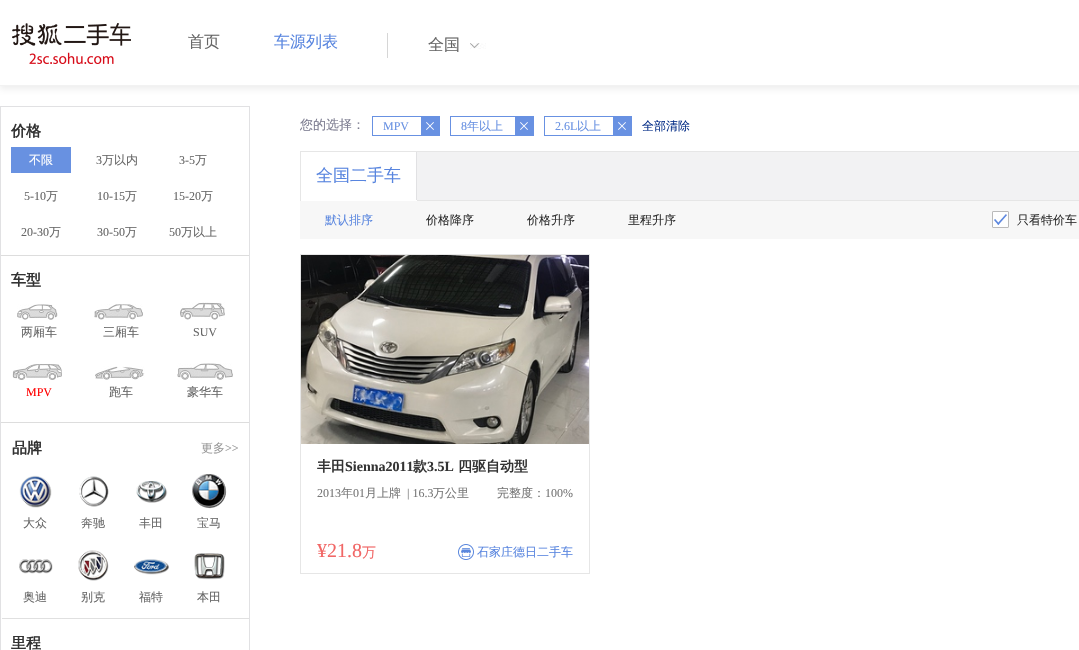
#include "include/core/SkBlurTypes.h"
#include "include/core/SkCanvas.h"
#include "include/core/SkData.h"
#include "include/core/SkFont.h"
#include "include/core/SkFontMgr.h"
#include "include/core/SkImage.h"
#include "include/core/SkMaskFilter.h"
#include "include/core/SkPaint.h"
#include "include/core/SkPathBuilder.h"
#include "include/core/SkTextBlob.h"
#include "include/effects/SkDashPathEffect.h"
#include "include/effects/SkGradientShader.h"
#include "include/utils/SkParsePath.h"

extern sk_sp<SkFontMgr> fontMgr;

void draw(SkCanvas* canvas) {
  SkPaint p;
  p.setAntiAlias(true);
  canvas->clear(SK_ColorWHITE);
  canvas->save();
  canvas->clipRect(SkRect::MakeLTRB(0, 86, 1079, 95));
  p.setColor(SkColorSetRGB(238, 238, 238));
  p.setMaskFilter(SkMaskFilter::MakeBlur(kNormal_SkBlurStyle, 3));
  canvas->drawRect(SkRect::MakeLTRB(0, 3, 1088, 89), p);
  p.setMaskFilter(nullptr);
  canvas->restore();
  p.setColor(SkColorSetRGB(242, 242, 242));
  canvas->drawRect(SkRect::MakeLTRB(0, 85, 1079, 86), p);
  canvas->drawImageRect(SkImages::DeferredFromEncodedData(SkData::MakeFromFileName("images/1.png")), SkRect::MakeLTRB(12, 23, 131, 64), SkSamplingOptions());
  p.setColor(SkColorSetRGB(214, 214, 214));
  canvas->drawRect(SkRect::MakeLTRB(387, 33, 388, 58), p);
  canvas->drawImageRect(SkImages::DeferredFromEncodedData(SkData::MakeFromFileName("images/2.png")), SkRect::MakeLTRB(470, 43, 486, 49), SkSamplingOptions());
  p.setStyle(SkPaint::kStroke_Style);
  p.setStrokeWidth(1);
  p.setColor(SkColorSetRGB(225, 225, 227));
  canvas->drawRect(SkRect::MakeLTRB(0.5f, 106.5f, 249.5f, 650.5f), p);
  p.setStyle(SkPaint::kFill_Style);
  p.setColor(SkColorSetRGB(221, 221, 221));
  canvas->drawRect(SkRect::MakeLTRB(1, 255, 249, 256), p);
  p.setColor(SkColorSetRGB(104, 145, 225));
  canvas->drawRect(SkRect::MakeLTRB(11, 147, 71, 173), p);
  p.setColor(SkColorSetRGB(221, 221, 221));
  canvas->drawRect(SkRect::MakeLTRB(1, 422, 249, 423), p);
  canvas->drawImageRect(SkImages::DeferredFromEncodedData(SkData::MakeFromFileName("images/3.png")), SkRect::MakeLTRB(17, 304, 58, 320), SkSamplingOptions());
  canvas->drawImageRect(SkImages::DeferredFromEncodedData(SkData::MakeFromFileName("images/4.png")), SkRect::MakeLTRB(94, 304, 143, 320), SkSamplingOptions());
  canvas->drawImageRect(SkImages::DeferredFromEncodedData(SkData::MakeFromFileName("images/5.png")), SkRect::MakeLTRB(180, 302, 225, 320), SkSamplingOptions());
  canvas->drawImageRect(SkImages::DeferredFromEncodedData(SkData::MakeFromFileName("images/6.png")), SkRect::MakeLTRB(12, 364, 62, 380), SkSamplingOptions());
  canvas->drawImageRect(SkImages::DeferredFromEncodedData(SkData::MakeFromFileName("images/7.png")), SkRect::MakeLTRB(95, 366, 145, 380), SkSamplingOptions());
  canvas->drawImageRect(SkImages::DeferredFromEncodedData(SkData::MakeFromFileName("images/8.png")), SkRect::MakeLTRB(177, 363, 233, 380), SkSamplingOptions());
  p.setColor(SkColorSetRGB(224, 224, 224));
  canvas->drawRect(SkRect::MakeLTRB(1, 618, 249, 619), p);
  p.setColor(SK_ColorWHITE);
  canvas->drawRect(SkRect::MakeLTRB(1, 618, 2, 619), p);
  canvas->drawImageRect(SkImages::DeferredFromEncodedData(SkData::MakeFromFileName("images/9.png")), SkRect::MakeLTRB(19, 475, 52, 508), SkSamplingOptions());
  canvas->drawImageRect(SkImages::DeferredFromEncodedData(SkData::MakeFromFileName("images/10.png")), SkRect::MakeLTRB(79, 476, 109, 507), SkSamplingOptions());
  canvas->drawImageRect(SkImages::DeferredFromEncodedData(SkData::MakeFromFileName("images/11.png")), SkRect::MakeLTRB(136, 481, 168, 503), SkSamplingOptions());
  canvas->drawImageRect(SkImages::DeferredFromEncodedData(SkData::MakeFromFileName("images/12.png")), SkRect::MakeLTRB(192, 474, 227, 509), SkSamplingOptions());
  canvas->drawImageRect(SkImages::DeferredFromEncodedData(SkData::MakeFromFileName("images/13.png")), SkRect::MakeLTRB(19, 559, 53, 574), SkSamplingOptions());
  canvas->drawImageRect(SkImages::DeferredFromEncodedData(SkData::MakeFromFileName("images/14.png")), SkRect::MakeLTRB(78, 550, 109, 581), SkSamplingOptions());
  canvas->drawImageRect(SkImages::DeferredFromEncodedData(SkData::MakeFromFileName("images/15.png")), SkRect::MakeLTRB(134, 559, 169, 575), SkSamplingOptions());
  canvas->drawImageRect(SkImages::DeferredFromEncodedData(SkData::MakeFromFileName("images/16.png")), SkRect::MakeLTRB(194, 553, 225, 580), SkSamplingOptions());
  p.setStyle(SkPaint::kStroke_Style);
  p.setColor(SkColorSetRGB(104, 145, 226));
  canvas->drawRect(SkRect::MakeLTRB(372.5f, 116.5f, 439.5f, 135.5f), p);
  p.setStyle(SkPaint::kFill_Style);
  canvas->drawRect(SkRect::MakeLTRB(421, 117, 439, 135), p);
  canvas->drawImageRect(SkImages::DeferredFromEncodedData(SkData::MakeFromFileName("images/17.png")), SkRect::MakeLTRB(426, 122, 434, 130), SkSamplingOptions());
  p.setStyle(SkPaint::kStroke_Style);
  canvas->drawRect(SkRect::MakeLTRB(450.5f, 116.5f, 533.5f, 135.5f), p);
  p.setStyle(SkPaint::kFill_Style);
  canvas->drawRect(SkRect::MakeLTRB(515, 117, 533, 135), p);
  canvas->drawImageRect(SkImages::DeferredFromEncodedData(SkData::MakeFromFileName("images/17.png")), SkRect::MakeLTRB(520, 122, 528, 130), SkSamplingOptions());
  p.setStyle(SkPaint::kStroke_Style);
  canvas->drawRect(SkRect::MakeLTRB(544.5f, 116.5f, 631.5f, 135.5f), p);
  p.setStyle(SkPaint::kFill_Style);
  canvas->drawRect(SkRect::MakeLTRB(613, 117, 631, 135), p);
  canvas->drawImageRect(SkImages::DeferredFromEncodedData(SkData::MakeFromFileName("images/17.png")), SkRect::MakeLTRB(618, 122, 626, 130), SkSamplingOptions());
  p.setColor(SkColorSetRGB(242, 242, 243));
  canvas->drawRect(SkRect::MakeLTRB(417, 152, 1079, 200), p);
  p.setStyle(SkPaint::kStroke_Style);
  p.setColor(SkColorSetRGB(230, 230, 230));
  canvas->drawRect(SkRect::MakeLTRB(300.5f, 151.5f, 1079.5f, 200.5f), p);
  p.setStyle(SkPaint::kFill_Style);
  p.setColor(SkColorSetRGB(225, 225, 227));
  canvas->drawRect(SkRect::MakeLTRB(416, 152, 417, 201), p);
  p.setColor(SK_ColorWHITE);
  canvas->drawRect(SkRect::MakeLTRB(301, 200, 417, 201), p);
  p.setColor(SkColorSetRGB(247, 247, 247));
  canvas->drawRect(SkRect::MakeLTRB(300, 201, 1079, 239), p);
  canvas->drawImageRect(SkImages::DeferredFromEncodedData(SkData::MakeFromFileName("images/18.png")), SkRect::MakeLTRB(992, 211, 1009, 228), SkSamplingOptions());
  p.setStyle(SkPaint::kStroke_Style);
  p.setColor(SkColorSetRGB(230, 230, 230));
  canvas->drawRect(SkRect::MakeLTRB(300.5f, 254.5f, 589.5f, 573.5f), p);
  canvas->drawImageRect(SkImages::DeferredFromEncodedData(SkData::MakeFromFileName("images/19.png")), SkRect::MakeLTRB(301, 255, 589, 444), SkSamplingOptions());
  canvas->drawImageRect(SkImages::DeferredFromEncodedData(SkData::MakeFromFileName("images/20.png")), SkRect::MakeLTRB(458, 544, 474, 560), SkSamplingOptions());
  SkFont font1(fontMgr->matchFamilyStyle("WenQuanYi Zen Hei", SkFontStyle(500, SkFontStyle::kNormal_Width, SkFontStyle::kUpright_Slant)), 16);
  font1.setSubpixel(true);
  p.setStyle(SkPaint::kFill_Style);
  p.setColor(SkColorSetRGB(102, 102, 102));
  canvas->drawString("首页", 188, 47, font1, p);
  p.setColor(SkColorSetRGB(88, 133, 223));
  canvas->drawString("车源列表", 274, 47, font1, p);
  p.setColor(SkColorSetRGB(102, 102, 102));
  canvas->drawString("全国", 428, 50, font1, p);
  SkFont font2(fontMgr->matchFamilyStyle("WenQuanYi Zen Hei", SkFontStyle::Bold()), 15);
  font2.setSubpixel(true);
  p.setColor(SkColorSetRGB(51, 51, 51));
  canvas->drawString("价格", 11, 136, font2, p);
  SkFont font3(fontMgr->matchFamilyStyle("WenQuanYi Zen Hei", SkFontStyle(500, SkFontStyle::kNormal_Width, SkFontStyle::kUpright_Slant)), 12);
  font3.setSubpixel(true);
  p.setColor(SK_ColorWHITE);
  canvas->drawString("不限", 29, 164, font3, p);
  SkFont font4(fontMgr->matchFamilyStyle("Liberation Serif", SkFontStyle::Normal()), 12);
  font4.setSubpixel(true);
  p.setColor(SkColorSetRGB(102, 102, 102));
  canvas->drawString("3", 96, 164, font4, p);
  canvas->drawString("万以内", 102, 164, font3, p);
  canvas->drawString("3-5", 179, 164, font4, p);
  canvas->drawString("万", 195, 164, font3, p);
  canvas->drawString("5-10", 24, 200, font4, p);
  canvas->drawString("万", 46, 200, font3, p);
  canvas->drawString("10-15", 97, 200, font4, p);
  canvas->drawString("万", 125, 200, font3, p);
  canvas->drawString("15-20", 173, 200, font4, p);
  canvas->drawString("万", 201, 200, font3, p);
  canvas->drawString("20-30", 21, 236, font4, p);
  canvas->drawString("万", 49, 236, font3, p);
  canvas->drawString("30-50", 97, 236, font4, p);
  canvas->drawString("万", 125, 236, font3, p);
  canvas->drawString("50", 169, 236, font4, p);
  canvas->drawString("万以上", 181, 236, font3, p);
  p.setColor(SkColorSetRGB(51, 51, 51));
  canvas->drawString("车型", 11, 285, font2, p);
  p.setColor(SkColorSetRGB(102, 102, 102));
  canvas->drawString("两厢车", 21, 336, font3, p);
  canvas->drawString("三厢车", 103, 336, font3, p);
  canvas->drawString("SUV", 193, 336, font4, p);
  p.setColor(SkColorSetRGB(255, 0, 0));
  canvas->drawString("MPV", 26, 396, font4, p);
  p.setColor(SkColorSetRGB(102, 102, 102));
  canvas->drawString("跑车", 109, 396, font3, p);
  canvas->drawString("豪华车", 187, 396, font3, p);
  p.setColor(SkColorSetRGB(51, 51, 51));
  canvas->drawString("品牌", 12, 453, font2, p);
  p.setColor(SkColorSetRGB(153, 153, 153));
  canvas->drawString("更多", 201, 452, font3, p);
  canvas->drawString(">>", 225, 452, font4, p);
  p.setColor(SkColorSetRGB(102, 102, 102));
  canvas->drawString("大众", 23, 527, font3, p);
  canvas->drawString("奔驰", 81, 527, font3, p);
  canvas->drawString("丰田", 139, 527, font3, p);
  canvas->drawString("宝马", 197, 527, font3, p);
  canvas->drawString("奥迪", 23, 601, font3, p);
  canvas->drawString("别克", 81, 601, font3, p);
  canvas->drawString("福特", 139, 601, font3, p);
  canvas->drawString("本田", 197, 601, font3, p);
  p.setColor(SkColorSetRGB(51, 51, 51));
  canvas->drawString("里程", 11, 648, font2, p);
  SkFont font5(fontMgr->matchFamilyStyle("WenQuanYi Zen Hei", SkFontStyle(500, SkFontStyle::kNormal_Width, SkFontStyle::kUpright_Slant)), 13);
  font5.setSubpixel(true);
  p.setColor(SkColorSetRGB(123, 123, 143));
  canvas->drawString("您的选择：", 300, 129, font5, p);
  p.setColor(SkColorSetRGB(104, 145, 226));
  canvas->drawString("MPV", 383, 130, font4, p);
  canvas->drawString("8", 461, 130, font4, p);
  canvas->drawString("年以上", 467, 130, font3, p);
  canvas->drawString("2.6L", 555, 130, font4, p);
  canvas->drawString("以上", 577, 130, font3, p);
  p.setColor(SkColorSetRGB(4, 45, 135));
  canvas->drawString("全部清除", 642, 130, font3, p);
  SkFont font6(fontMgr->matchFamilyStyle("WenQuanYi Zen Hei", SkFontStyle(500, SkFontStyle::kNormal_Width, SkFontStyle::kUpright_Slant)), 17);
  font6.setSubpixel(true);
  p.setColor(SkColorSetRGB(88, 133, 223));
  canvas->drawString("全国二手车", 316, 181, font6, p);
  canvas->drawString("默认排序", 325, 224, font3, p);
  p.setColor(SkColorSetRGB(45, 45, 45));
  canvas->drawString("价格降序", 426, 224, font3, p);
  canvas->drawString("价格升序", 527, 224, font3, p);
  canvas->drawString("里程升序", 628, 224, font3, p);
  canvas->drawString("只看特价车", 1017, 224, font3, p);
  SkFont font7(fontMgr->matchFamilyStyle("WenQuanYi Zen Hei", SkFontStyle::Bold()), 14);
  font7.setSubpixel(true);
  p.setColor(SkColorSetRGB(51, 51, 51));
  canvas->drawString("丰田", 317, 471, font7, p);
  SkFont font8(fontMgr->matchFamilyStyle("Liberation Serif", SkFontStyle::Bold()), 14);
  font8.setSubpixel(true);
  canvas->drawString("Sienna2011", 345, 471, font8, p);
  canvas->drawString("款", 413, 471, font7, p);
  canvas->drawString("3.5L", 427, 471, font8, p);
  canvas->drawString("四驱自动型", 458, 471, font7, p);
  p.setColor(SkColorSetRGB(119, 119, 119));
  canvas->drawString("2013", 317, 497, font4, p);
  canvas->drawString("年", 341, 497, font3, p);
  canvas->drawString("01", 353, 497, font4, p);
  canvas->drawString("月上牌", 365, 497, font3, p);
  canvas->drawString("| 16.3", 407, 497, font4, p);
  canvas->drawString("万公里", 433, 497, font3, p);
  canvas->drawString("完整度：", 497, 497, font3, p);
  canvas->drawString("100%", 545, 497, font4, p);
  SkFont font9(fontMgr->matchFamilyStyle("Liberation Serif", SkFontStyle::Normal()), 20);
  font9.setSubpixel(true);
  p.setColor(SkColorSetRGB(241, 103, 102));
  canvas->drawString("¥21.8", 317, 557, font9, p);
  SkFont font10(fontMgr->matchFamilyStyle("WenQuanYi Zen Hei", SkFontStyle(500, SkFontStyle::kNormal_Width, SkFontStyle::kUpright_Slant)), 14);
  font10.setSubpixel(true);
  canvas->drawString("万", 362, 557, font10, p);
  p.setColor(SkColorSetRGB(88, 133, 223));
  canvas->drawString("石家庄德日二手车", 477, 556, font3, p);
}
